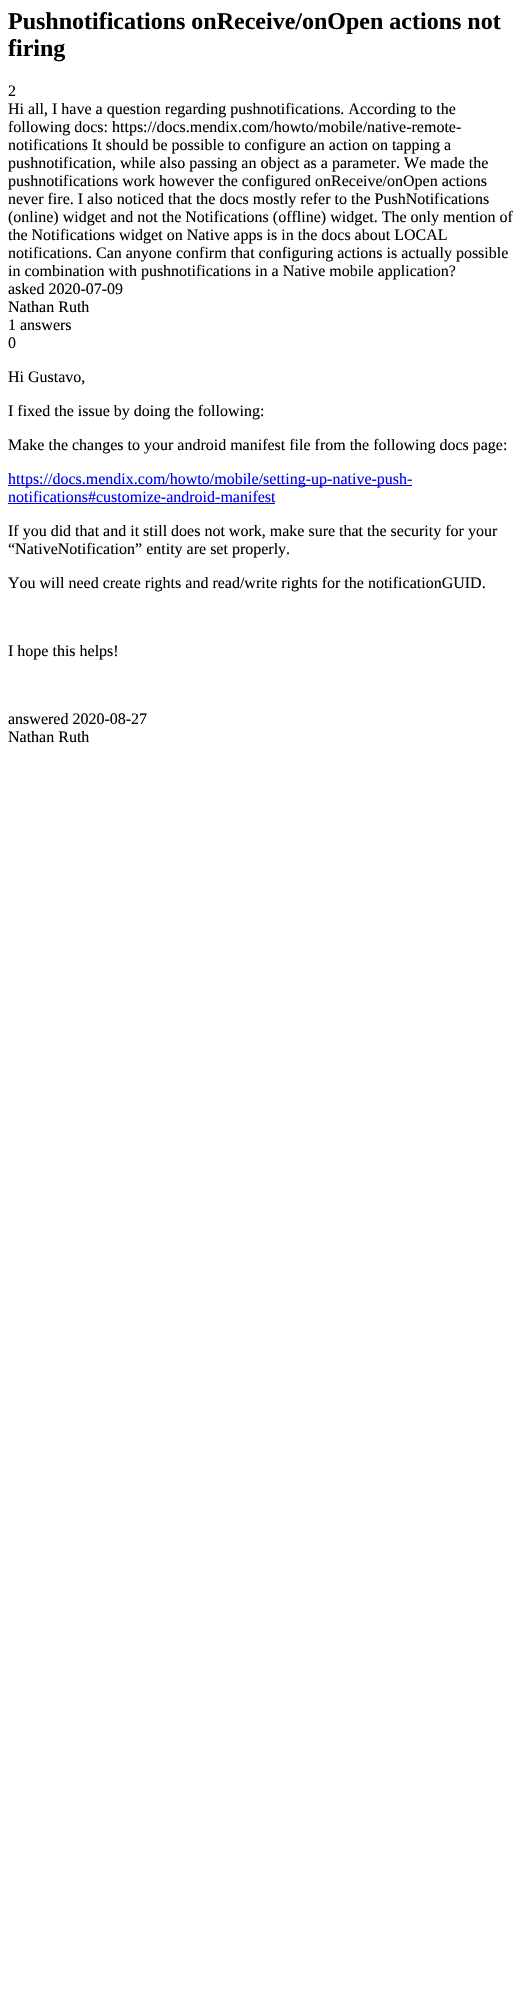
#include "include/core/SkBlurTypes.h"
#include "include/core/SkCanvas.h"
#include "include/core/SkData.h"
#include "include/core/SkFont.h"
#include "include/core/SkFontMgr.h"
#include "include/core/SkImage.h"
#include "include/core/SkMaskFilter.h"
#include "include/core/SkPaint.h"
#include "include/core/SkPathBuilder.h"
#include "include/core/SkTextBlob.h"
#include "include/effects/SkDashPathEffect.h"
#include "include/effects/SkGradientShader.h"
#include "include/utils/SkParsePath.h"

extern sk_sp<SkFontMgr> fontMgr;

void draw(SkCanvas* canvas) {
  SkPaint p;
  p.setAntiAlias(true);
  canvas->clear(SK_ColorWHITE);
  p.setColor(SkColorSetRGB(0, 0, 238));
  canvas->drawRect(SkRect::MakeLTRB(8, 485, 412, 486), p);
  canvas->drawRect(SkRect::MakeLTRB(8, 503, 275, 504), p);
  SkFont font1(fontMgr->matchFamilyStyle("Liberation Serif", SkFontStyle::Bold()), 24);
  font1.setSubpixel(true);
  p.setColor(SK_ColorBLACK);
  canvas->drawString("Pushnotifications onReceive/onOpen actions not", 8, 29, font1, p);
  canvas->drawString("firing", 8, 56, font1, p);
  SkFont font2(fontMgr->matchFamilyStyle("Liberation Serif", SkFontStyle::Normal()), 16);
  font2.setSubpixel(true);
  canvas->drawString("2", 8, 96, font2, p);
  canvas->drawString("Hi all, I have a question regarding pushnotifications. According to the", 8, 114, font2, p);
  canvas->drawString("following docs: https://docs.mendix.com/howto/mobile/native-remote-", 8, 132, font2, p);
  canvas->drawString("notifications It should be possible to configure an action on tapping a", 8, 150, font2, p);
  canvas->drawString("pushnotification, while also passing an object as a parameter. We made the", 8, 168, font2, p);
  canvas->drawString("pushnotifications work however the configured onReceive/onOpen actions", 8, 186, font2, p);
  canvas->drawString("never fire. I also noticed that the docs mostly refer to the PushNotifications", 8, 204, font2, p);
  canvas->drawString("(online) widget and not the Notifications (offline) widget. The only mention of", 8, 222, font2, p);
  canvas->drawString("the Notifications widget on Native apps is in the docs about LOCAL", 8, 240, font2, p);
  canvas->drawString("notifications. Can anyone confirm that configuring actions is actually possible", 8, 258, font2, p);
  canvas->drawString("in combination with pushnotifications in a Native mobile application?", 8, 276, font2, p);
  canvas->drawString("asked 2020-07-09", 8, 294, font2, p);
  canvas->drawString("Nathan Ruth", 8, 312, font2, p);
  canvas->drawString("1 answers", 8, 330, font2, p);
  canvas->drawString("0", 8, 348, font2, p);
  canvas->drawString("Hi Gustavo,", 8, 382, font2, p);
  canvas->drawString("I fixed the issue by doing the following:", 8, 416, font2, p);
  canvas->drawString("Make the changes to your android manifest file from the following docs page:", 8, 450, font2, p);
  p.setColor(SkColorSetRGB(0, 0, 238));
  canvas->drawString("https://docs.mendix.com/howto/mobile/setting-up-native-push-", 8, 484, font2, p);
  canvas->drawString("notifications#customize-android-manifest", 8, 502, font2, p);
  p.setColor(SK_ColorBLACK);
  canvas->drawString("If you did that and it still does not work, make sure that the security for your", 8, 536, font2, p);
  canvas->drawString("“NativeNotification” entity are set properly.", 8, 554, font2, p);
  canvas->drawString("You will need create rights and read/write rights for the notificationGUID.", 8, 588, font2, p);
  canvas->drawString("I hope this helps!", 8, 656, font2, p);
  canvas->drawString("answered 2020-08-27", 8, 724, font2, p);
  canvas->drawString("Nathan Ruth", 8, 742, font2, p);
}
